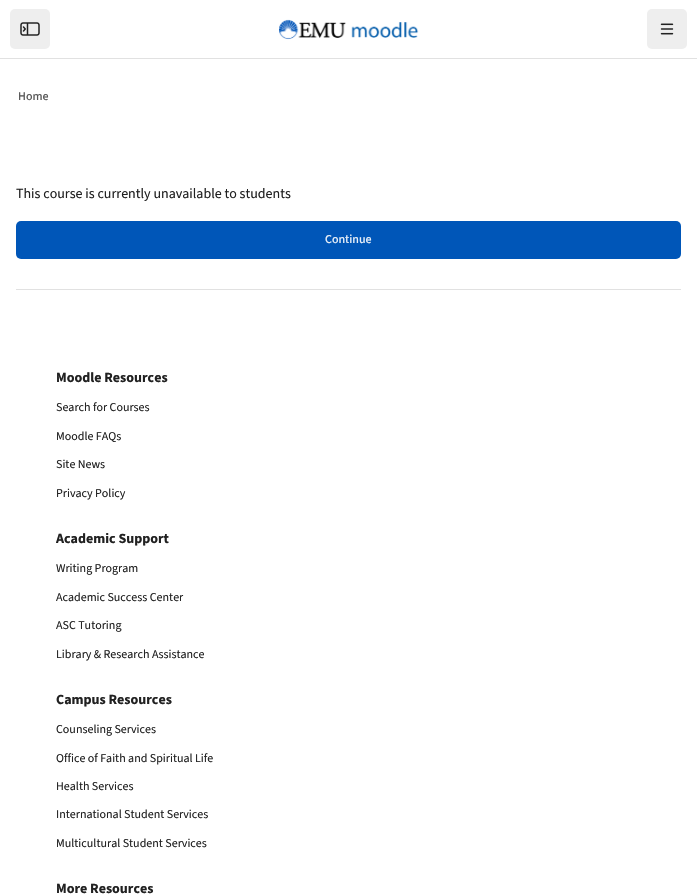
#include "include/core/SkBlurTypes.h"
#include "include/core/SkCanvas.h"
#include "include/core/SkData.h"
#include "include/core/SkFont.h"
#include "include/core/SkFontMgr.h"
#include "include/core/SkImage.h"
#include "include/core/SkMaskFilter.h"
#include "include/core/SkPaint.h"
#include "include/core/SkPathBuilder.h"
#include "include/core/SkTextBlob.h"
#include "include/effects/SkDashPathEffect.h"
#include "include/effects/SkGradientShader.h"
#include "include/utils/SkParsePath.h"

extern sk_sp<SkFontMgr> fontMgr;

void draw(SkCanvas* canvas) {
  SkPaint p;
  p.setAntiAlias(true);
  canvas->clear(SK_ColorWHITE);
  p.setColor(SkColorSetRGB(225, 225, 225));
  canvas->drawRect(SkRect::MakeLTRB(0, 58, 697, 59), p);
  p.setColor(SkColorSetRGB(238, 238, 238));
  canvas->drawRoundRect(SkRect::MakeLTRB(10, 9, 50, 49), 5, 5, p);
  canvas->drawImageRect(SkImages::DeferredFromEncodedData(SkData::MakeFromFileName("images/1.png")), SkRect::MakeLTRB(20, 22, 40, 36), SkSamplingOptions());
  canvas->drawImageRect(SkImages::DeferredFromEncodedData(SkData::MakeFromFileName("images/2.png")), SkRect::MakeLTRB(279, 19, 419, 40), SkSamplingOptions());
  canvas->drawRoundRect(SkRect::MakeLTRB(647, 9, 687, 49), 5, 5, p);
  canvas->drawImageRect(SkImages::DeferredFromEncodedData(SkData::MakeFromFileName("images/3.png")), SkRect::MakeLTRB(660, 23, 674, 35), SkSamplingOptions());
  p.setColor(SkColorSetRGB(0, 86, 184));
  canvas->drawRoundRect(SkRect::MakeLTRB(16, 221, 681, 259), 5, 5, p);
  p.setColor(SkColorSetRGB(225, 225, 225));
  canvas->drawRect(SkRect::MakeLTRB(16, 289, 681, 290), p);
  SkFont font1(fontMgr->matchFamilyStyle("Source Sans 3", SkFontStyle(500, SkFontStyle::kNormal_Width, SkFontStyle::kUpright_Slant)), 12);
  font1.setSubpixel(true);
  p.setColor(SkColorSetRGB(89, 89, 89));
  canvas->drawString("Home", 18, 100, font1, p);
  SkFont font2(fontMgr->matchFamilyStyle("Source Sans 3", SkFontStyle::Normal()), 14);
  font2.setSubpixel(true);
  p.setColor(SkColorSetRGB(33, 33, 33));
  canvas->drawString("This course is currently unavailable to students", 16, 198, font2, p);
  p.setColor(SkColorSetRGB(230, 238, 248));
  canvas->drawString("Continue", 325, 243, font1, p);
  SkFont font3(fontMgr->matchFamilyStyle("Source Sans 3", SkFontStyle::Bold()), 14);
  font3.setSubpixel(true);
  p.setColor(SkColorSetRGB(33, 33, 33));
  canvas->drawString("Moodle Resources", 56, 382, font3, p);
  SkFont font4(fontMgr->matchFamilyStyle("Source Sans 3", SkFontStyle::Normal()), 12);
  font4.setSubpixel(true);
  canvas->drawString("Search for Courses", 56, 411, font4, p);
  canvas->drawString("Moodle FAQs", 56, 440, font4, p);
  canvas->drawString("Site News", 56, 468, font4, p);
  canvas->drawString("Privacy Policy", 56, 497, font4, p);
  canvas->drawString("Academic Support", 56, 543, font3, p);
  canvas->drawString("Writing Program", 56, 572, font4, p);
  canvas->drawString("Academic Success Center", 56, 601, font4, p);
  canvas->drawString("ASC Tutoring", 56, 629, font4, p);
  canvas->drawString("Library & Research Assistance", 56, 658, font4, p);
  canvas->drawString("Campus Resources", 56, 704, font3, p);
  canvas->drawString("Counseling Services", 56, 733, font4, p);
  canvas->drawString("Office of Faith and Spiritual Life", 56, 762, font4, p);
  canvas->drawString("Health Services", 56, 790, font4, p);
  canvas->drawString("International Student Services", 56, 818, font4, p);
  canvas->drawString("Multicultural Student Services", 56, 847, font4, p);
  canvas->drawString("More Resources", 56, 893, font3, p);
}
